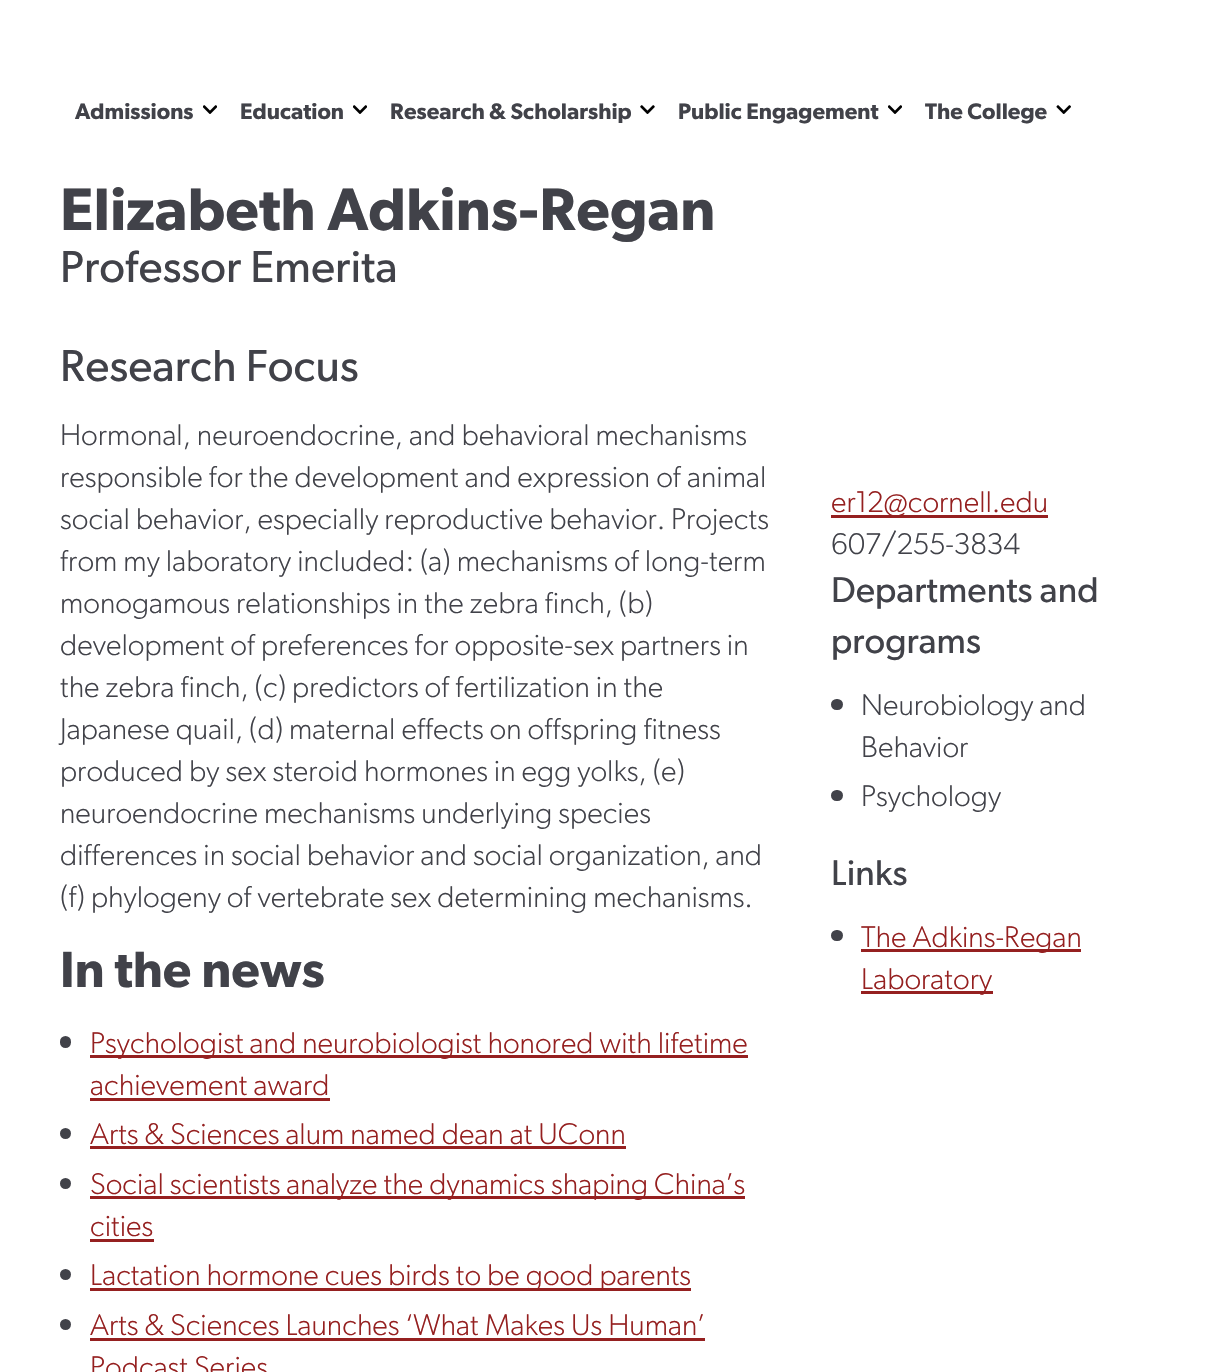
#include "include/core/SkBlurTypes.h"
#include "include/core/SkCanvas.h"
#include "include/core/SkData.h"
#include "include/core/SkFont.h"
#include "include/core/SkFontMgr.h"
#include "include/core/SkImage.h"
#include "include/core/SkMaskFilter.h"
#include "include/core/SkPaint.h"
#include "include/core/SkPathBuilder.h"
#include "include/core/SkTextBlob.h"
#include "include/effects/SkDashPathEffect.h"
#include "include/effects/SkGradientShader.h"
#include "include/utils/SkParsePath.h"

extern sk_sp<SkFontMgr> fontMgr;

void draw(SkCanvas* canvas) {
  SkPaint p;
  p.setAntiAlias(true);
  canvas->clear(SK_ColorWHITE);
  canvas->drawImageRect(SkImages::DeferredFromEncodedData(SkData::MakeFromFileName("images/1.png")), SkRect::MakeLTRB(203, 105, 217, 114), SkSamplingOptions());
  canvas->drawImageRect(SkImages::DeferredFromEncodedData(SkData::MakeFromFileName("images/1.png")), SkRect::MakeLTRB(353, 105, 367, 114), SkSamplingOptions());
  canvas->drawImageRect(SkImages::DeferredFromEncodedData(SkData::MakeFromFileName("images/2.png")), SkRect::MakeLTRB(640, 105, 655, 114), SkSamplingOptions());
  canvas->drawImageRect(SkImages::DeferredFromEncodedData(SkData::MakeFromFileName("images/1.png")), SkRect::MakeLTRB(888, 105, 902, 114), SkSamplingOptions());
  canvas->drawImageRect(SkImages::DeferredFromEncodedData(SkData::MakeFromFileName("images/3.png")), SkRect::MakeLTRB(1056, 105, 1071, 114), SkSamplingOptions());
  p.setColor(SkColorSetRGB(65, 66, 73));
  canvas->drawRoundRect(SkRect::MakeLTRB(60, 1036, 71, 1048), 5.5f, 5.5f, p);
  p.setColor(SkColorSetRGB(149, 32, 32));
  canvas->drawRect(SkRect::MakeLTRB(90, 1055, 748, 1058), p);
  canvas->drawRect(SkRect::MakeLTRB(90, 1098, 330, 1101), p);
  p.setColor(SkColorSetRGB(65, 66, 73));
  canvas->drawCircle(65.5f, 1133.5f, 5.5f, p);
  p.setColor(SkColorSetRGB(149, 32, 32));
  canvas->drawRect(SkRect::MakeLTRB(90, 1146, 626, 1149), p);
  p.setColor(SkColorSetRGB(65, 66, 73));
  canvas->drawCircle(65.5f, 1183.5f, 5.5f, p);
  p.setColor(SkColorSetRGB(149, 32, 32));
  canvas->drawRect(SkRect::MakeLTRB(90, 1196, 745, 1199), p);
  canvas->drawRect(SkRect::MakeLTRB(90, 1239, 154, 1242), p);
  p.setColor(SkColorSetRGB(65, 66, 73));
  canvas->drawCircle(65.5f, 1274.5f, 5.5f, p);
  p.setColor(SkColorSetRGB(149, 32, 32));
  canvas->drawRect(SkRect::MakeLTRB(90, 1288, 691, 1291), p);
  p.setColor(SkColorSetRGB(65, 66, 73));
  canvas->drawCircle(65.5f, 1324.5f, 5.5f, p);
  p.setColor(SkColorSetRGB(149, 32, 32));
  canvas->drawRect(SkRect::MakeLTRB(90, 1338, 705, 1341), p);
  canvas->drawRect(SkRect::MakeLTRB(831, 515, 1048, 518), p);
  p.setColor(SkColorSetRGB(65, 66, 73));
  canvas->drawRoundRect(SkRect::MakeLTRB(831, 699, 843, 710), 5.5f, 5.5f, p);
  canvas->drawRoundRect(SkRect::MakeLTRB(831, 790, 843, 801), 5.5f, 5.5f, p);
  canvas->drawRoundRect(SkRect::MakeLTRB(831, 930, 843, 941), 5.5f, 5.5f, p);
  p.setColor(SkColorSetRGB(149, 32, 32));
  canvas->drawRect(SkRect::MakeLTRB(861, 949, 1081, 952), p);
  canvas->drawRect(SkRect::MakeLTRB(861, 991, 993, 994), p);
  SkFont font1(fontMgr->matchFamilyStyle("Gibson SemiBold", SkFontStyle(600, SkFontStyle::kNormal_Width, SkFontStyle::kUpright_Slant)), 22.5f);
  font1.setSubpixel(true);
  p.setColor(SkColorSetRGB(65, 66, 73));
  canvas->drawString("Admissions", 75, 119, font1, p);
  canvas->drawString("Education", 240, 119, font1, p);
  canvas->drawString("Research & Scholarship", 390, 119, font1, p);
  canvas->drawString("Public Engagement", 678, 119, font1, p);
  canvas->drawString("The College", 925, 119, font1, p);
  SkFont font2(fontMgr->matchFamilyStyle("Gibson SemiBold", SkFontStyle(600, SkFontStyle::kNormal_Width, SkFontStyle::kUpright_Slant)), 60);
  font2.setSubpixel(true);
  canvas->drawString("Elizabeth Adkins-Regan", 60, 230, font2, p);
  SkFont font3(fontMgr->matchFamilyStyle("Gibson", SkFontStyle::Normal()), 45);
  font3.setSubpixel(true);
  canvas->drawString("Professor Emerita", 60, 282, font3, p);
  canvas->drawString("Research Focus", 60, 381, font3, p);
  SkFont font4(fontMgr->matchFamilyStyle("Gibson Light", SkFontStyle(300, SkFontStyle::kNormal_Width, SkFontStyle::kUpright_Slant)), 30);
  font4.setSubpixel(true);
  canvas->drawString("Hormonal, neuroendocrine, and behavioral mechanisms", 60, 445, font4, p);
  canvas->drawString("responsible for the development and expression of animal", 60, 487, font4, p);
  canvas->drawString("social behavior, especially reproductive behavior. Projects", 60, 529, font4, p);
  canvas->drawString("from my laboratory included: (a) mechanisms of long-term", 60, 571, font4, p);
  canvas->drawString("monogamous relationships in the zebra finch, (b)", 60, 613, font4, p);
  canvas->drawString("development of preferences for opposite-sex partners in", 60, 655, font4, p);
  canvas->drawString("the zebra finch, (c) predictors of fertilization in the", 60, 697, font4, p);
  canvas->drawString("Japanese quail, (d) maternal effects on offspring fitness", 60, 739, font4, p);
  canvas->drawString("produced by sex steroid hormones in egg yolks, (e)", 60, 781, font4, p);
  canvas->drawString("neuroendocrine mechanisms underlying species", 60, 823, font4, p);
  canvas->drawString("differences in social behavior and social organization, and", 60, 865, font4, p);
  canvas->drawString("(f) phylogeny of vertebrate sex determining mechanisms.", 60, 907, font4, p);
  SkFont font5(fontMgr->matchFamilyStyle("Gibson SemiBold", SkFontStyle(600, SkFontStyle::kNormal_Width, SkFontStyle::kUpright_Slant)), 51);
  font5.setSubpixel(true);
  canvas->drawString("In the news", 60, 987, font5, p);
  p.setColor(SkColorSetRGB(149, 32, 32));
  canvas->drawString("Psychologist and neurobiologist honored with lifetime", 90, 1053, font4, p);
  canvas->drawString("achievement award", 90, 1095, font4, p);
  canvas->drawString("Arts & Sciences alum named dean at UConn", 90, 1144, font4, p);
  canvas->drawString("Social scientists analyze the dynamics shaping China’s", 90, 1194, font4, p);
  canvas->drawString("cities", 90, 1236, font4, p);
  canvas->drawString("Lactation hormone cues birds to be good parents", 90, 1285, font4, p);
  canvas->drawString("Arts & Sciences Launches ‘What Makes Us Human’", 90, 1335, font4, p);
  canvas->drawString("Podcast Series", 90, 1377, font4, p);
  canvas->drawString("er12@cornell.edu", 831, 512, font4, p);
  p.setColor(SkColorSetRGB(65, 66, 73));
  canvas->drawString("607/255-3834", 831, 554, font4, p);
  SkFont font6(fontMgr->matchFamilyStyle("Gibson", SkFontStyle::Normal()), 36);
  font6.setSubpixel(true);
  canvas->drawString("Departments and", 831, 602, font6, p);
  canvas->drawString("programs", 831, 653, font6, p);
  canvas->drawString("Neurobiology and", 861, 715, font4, p);
  canvas->drawString("Behavior", 861, 757, font4, p);
  canvas->drawString("Psychology", 861, 806, font4, p);
  canvas->drawString("Links", 831, 885, font6, p);
  p.setColor(SkColorSetRGB(149, 32, 32));
  canvas->drawString("The Adkins-Regan", 861, 947, font4, p);
  canvas->drawString("Laboratory", 861, 989, font4, p);
}
